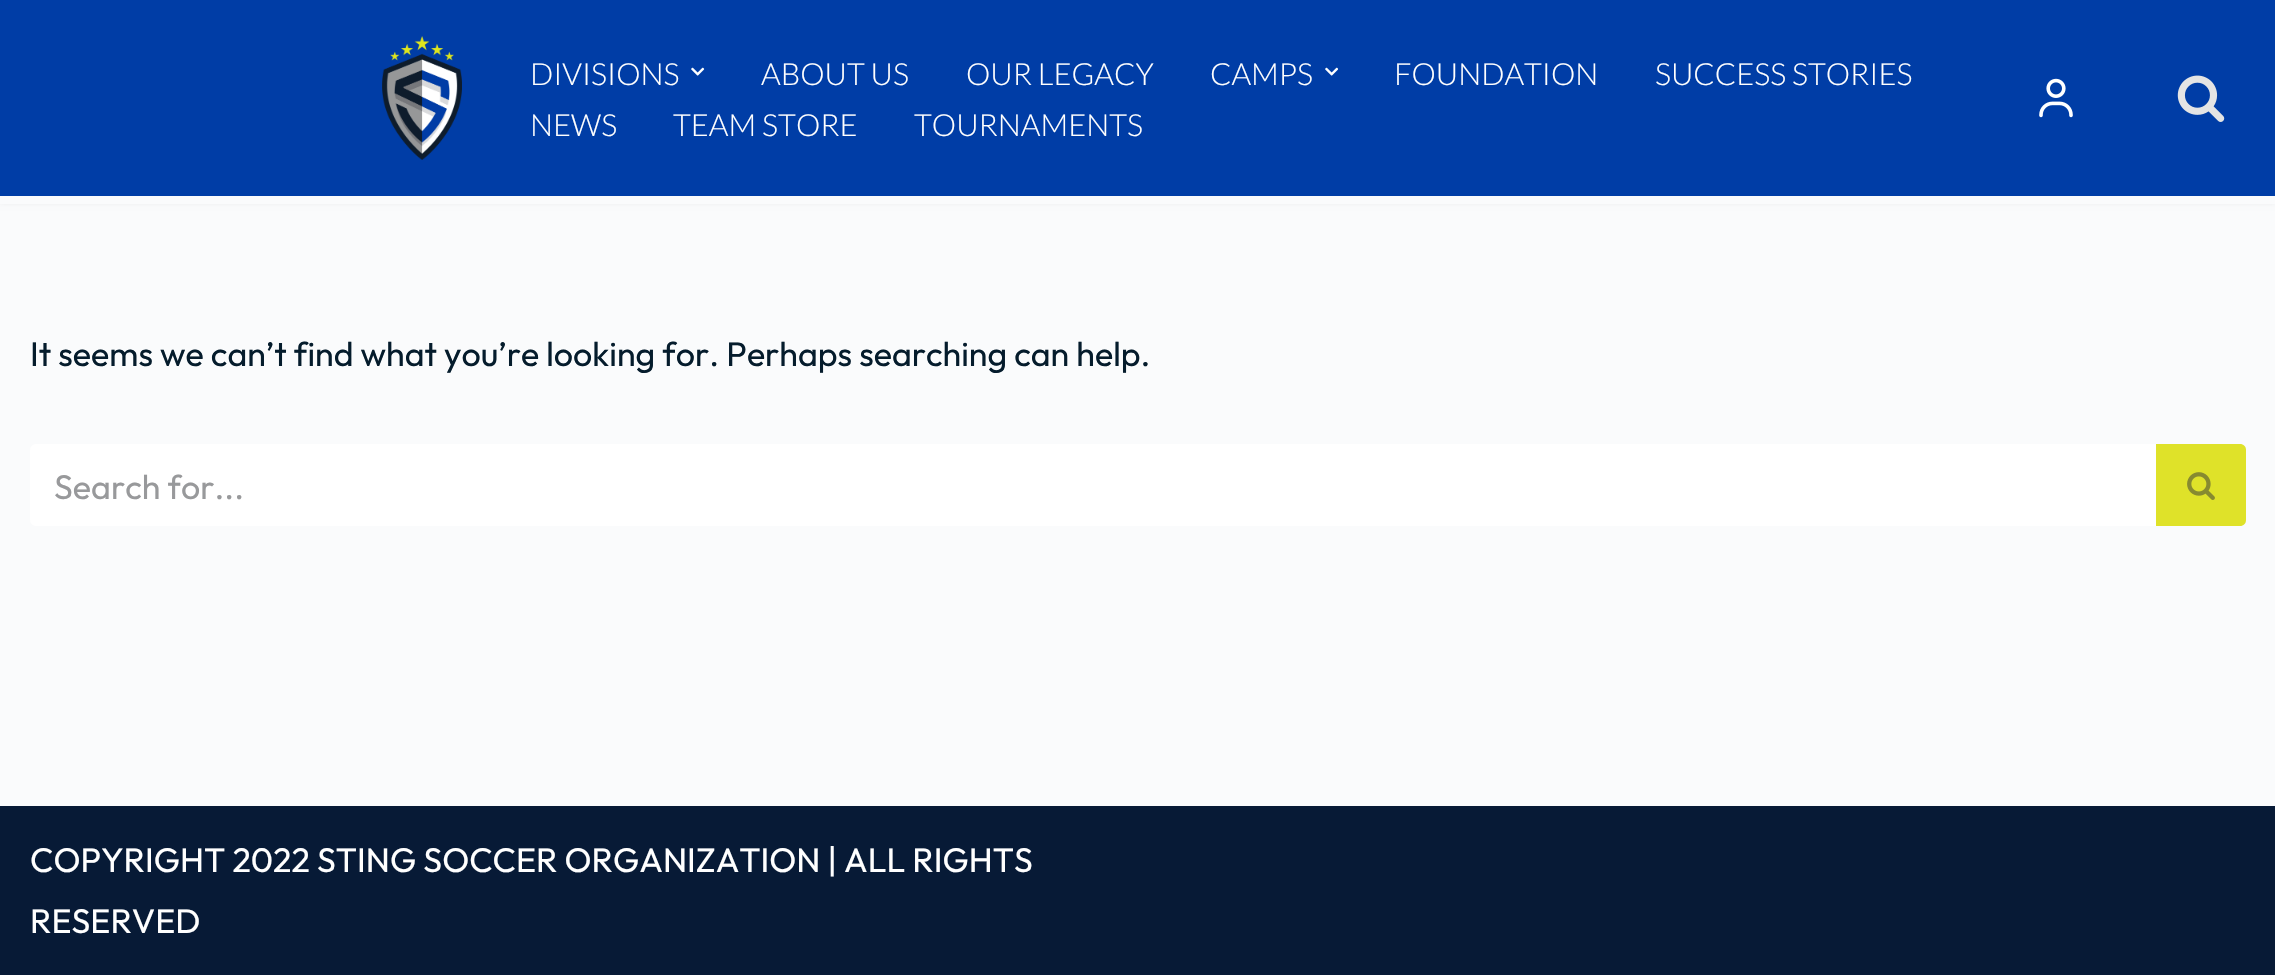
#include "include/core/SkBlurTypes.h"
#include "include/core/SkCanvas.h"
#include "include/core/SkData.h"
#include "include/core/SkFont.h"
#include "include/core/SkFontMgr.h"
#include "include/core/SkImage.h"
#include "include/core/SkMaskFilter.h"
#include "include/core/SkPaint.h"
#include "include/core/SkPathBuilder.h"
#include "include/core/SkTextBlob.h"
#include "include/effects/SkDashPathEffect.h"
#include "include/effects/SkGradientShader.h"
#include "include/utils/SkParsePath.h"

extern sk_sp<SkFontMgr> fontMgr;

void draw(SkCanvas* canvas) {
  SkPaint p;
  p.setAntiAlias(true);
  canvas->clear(SkColorSetRGB(250, 251, 252));
  p.setColor(SkColorSetARGB(26, 0, 0, 0));
  p.setMaskFilter(SkMaskFilter::MakeBlur(kNormal_SkBlurStyle, 3));
  canvas->drawRect(SkRect::MakeLTRB(0, -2, 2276, 202), p);
  p.setMaskFilter(nullptr);
  p.setColor(SkColorSetRGB(0, 61, 166));
  canvas->drawRect(SkRect::MakeLTRB(0, 0, 2275, 196), p);
  p.setColor(SkColorSetRGB(250, 251, 252));
  canvas->drawRect(SkRect::MakeLTRB(0, 196, 2275, 204), p);
  canvas->drawImageRect(SkImages::DeferredFromEncodedData(SkData::MakeFromFileName("images/1.png")), SkRect::MakeLTRB(382, 36, 462, 160), SkSamplingOptions());
  canvas->drawImageRect(SkImages::DeferredFromEncodedData(SkData::MakeFromFileName("images/2.png")), SkRect::MakeLTRB(691, 67, 705, 76), SkSamplingOptions());
  canvas->drawImageRect(SkImages::DeferredFromEncodedData(SkData::MakeFromFileName("images/3.png")), SkRect::MakeLTRB(1325, 67, 1338, 76), SkSamplingOptions());
  canvas->drawImageRect(SkImages::DeferredFromEncodedData(SkData::MakeFromFileName("images/4.png")), SkRect::MakeLTRB(2039, 78, 2073, 118), SkSamplingOptions());
  canvas->drawImageRect(SkImages::DeferredFromEncodedData(SkData::MakeFromFileName("images/5.png")), SkRect::MakeLTRB(2177, 75, 2225, 122), SkSamplingOptions());
  p.setColor(SK_ColorWHITE);
  canvas->drawPath(SkPathBuilder().moveTo(36, 444).lineTo(2156, 444).lineTo(2156, 526).lineTo(36, 526).cubicTo(32.5f, 526, 30, 523.5f, 30, 520).lineTo(30, 450).cubicTo(30, 446.5f, 32.5f, 444, 36, 444).close().detach(), p);
  p.setColor(SkColorSetRGB(223, 226, 41));
  canvas->drawPath(SkPathBuilder().moveTo(2156, 444).lineTo(2240, 444).cubicTo(2243.5f, 444, 2246, 446.5f, 2246, 450).lineTo(2246, 520).cubicTo(2246, 523.5f, 2243.5f, 526, 2240, 526).lineTo(2156, 526).close().detach(), p);
  canvas->drawImageRect(SkImages::DeferredFromEncodedData(SkData::MakeFromFileName("images/6.png")), SkRect::MakeLTRB(2187, 472, 2215, 500), SkSamplingOptions());
  p.setColor(SkColorSetRGB(7, 26, 54));
  canvas->drawRect(SkRect::MakeLTRB(0, 806, 2275, 975), p);
  SkFont font1(fontMgr->matchFamilyStyle("Lato", SkFontStyle(300, SkFontStyle::kNormal_Width, SkFontStyle::kUpright_Slant)), 30.5f);
  font1.setSubpixel(true);
  p.setColor(SK_ColorWHITE);
  canvas->drawString("DIVISIONS", 530, 85, font1, p);
  canvas->drawString("ABOUT US", 761, 85, font1, p);
  canvas->drawString("OUR LEGACY", 966, 85, font1, p);
  canvas->drawString("CAMPS", 1210, 85, font1, p);
  canvas->drawString("FOUNDATION", 1394, 85, font1, p);
  canvas->drawString("SUCCESS STORIES", 1655, 85, font1, p);
  canvas->drawString("NEWS", 530, 136, font1, p);
  canvas->drawString("TEAM STORE", 673, 136, font1, p);
  canvas->drawString("TOURNAMENTS", 914, 136, font1, p);
  SkFont font2(fontMgr->matchFamilyStyle("Outfit", SkFontStyle::Normal()), 34);
  font2.setSubpixel(true);
  p.setColor(SkColorSetRGB(5, 28, 44));
  canvas->drawString("It seems we can’t find what you’re looking for. Perhaps searching can help.", 30, 366, font2, p);
  p.setColor(SkColorSetRGB(152, 153, 155));
  canvas->drawString("Search for...", 54, 499, font2, p);
  p.setColor(SK_ColorWHITE);
  canvas->drawString("COPYRIGHT 2022 STING SOCCER ORGANIZATION | ALL RIGHTS", 30, 872, font2, p);
  canvas->drawString("RESERVED", 30, 933, font2, p);
}
